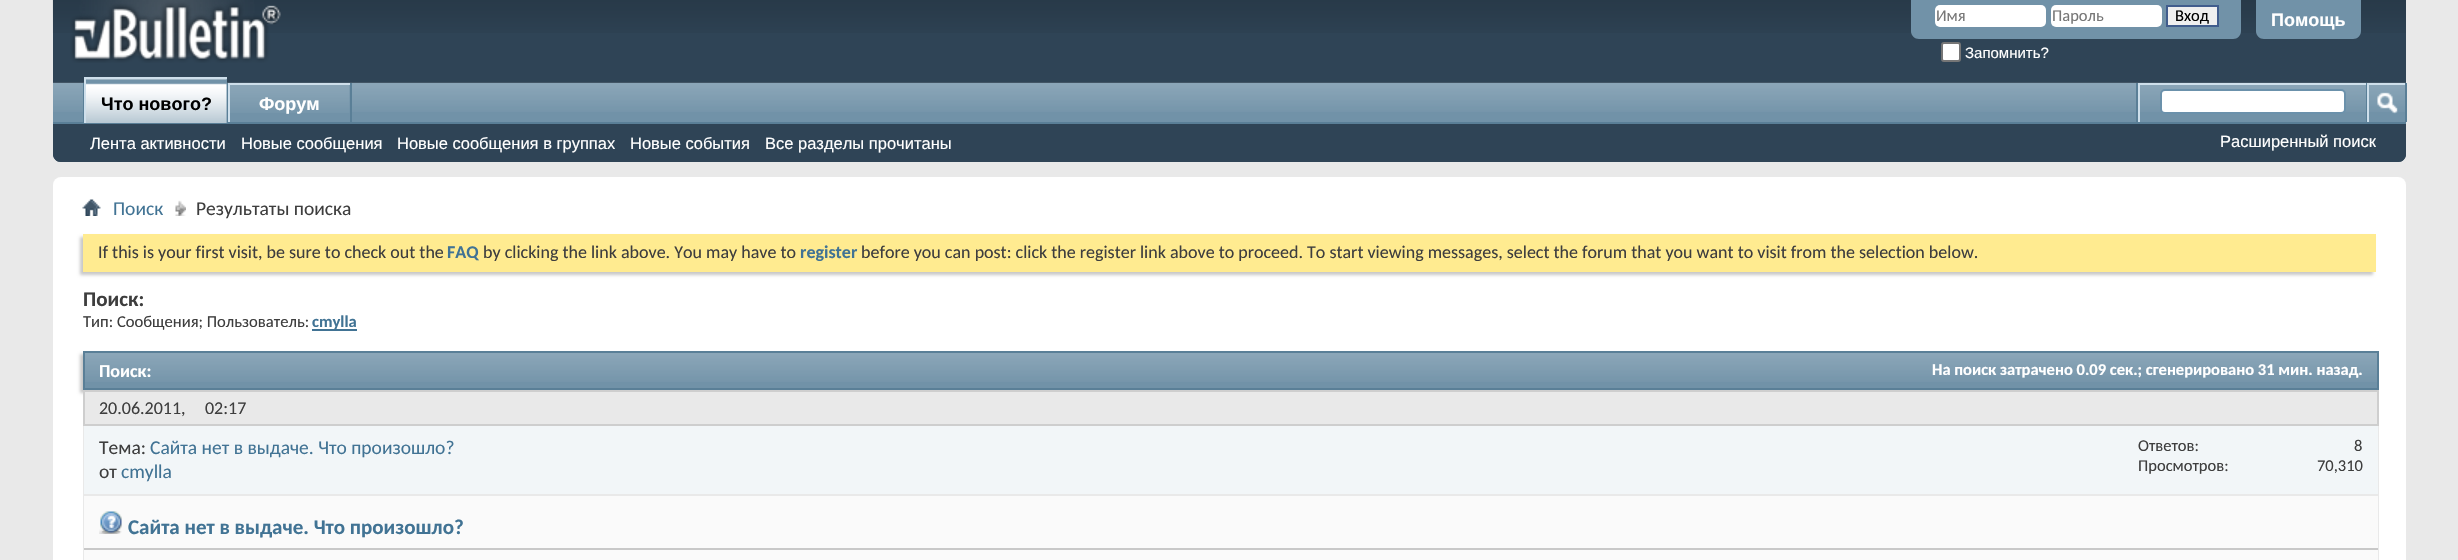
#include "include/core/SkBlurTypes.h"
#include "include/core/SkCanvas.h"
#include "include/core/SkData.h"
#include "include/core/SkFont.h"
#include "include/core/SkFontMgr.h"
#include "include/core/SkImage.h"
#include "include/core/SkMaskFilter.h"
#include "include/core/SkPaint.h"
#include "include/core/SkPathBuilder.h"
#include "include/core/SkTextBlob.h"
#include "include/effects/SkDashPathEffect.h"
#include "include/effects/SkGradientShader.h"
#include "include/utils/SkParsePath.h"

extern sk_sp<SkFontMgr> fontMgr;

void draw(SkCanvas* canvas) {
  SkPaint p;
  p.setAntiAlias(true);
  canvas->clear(SkColorSetRGB(233, 233, 233));
  p.setColor(SkColorSetRGB(47, 68, 86));
  canvas->drawPath(SkPathBuilder().moveTo(53, 0).lineTo(2406, 0).lineTo(2406, 154).cubicTo(2406, 158.5f, 2402.5f, 162, 2398, 162).lineTo(61, 162).cubicTo(56.5f, 162, 53, 158.5f, 53, 154).close().detach(), p);
  canvas->drawImageRect(SkImages::DeferredFromEncodedData(SkData::MakeFromFileName("images/1.png")), SkRect::MakeLTRB(52, 0, 2406, 33), SkSamplingOptions());
  canvas->drawImageRect(SkImages::DeferredFromEncodedData(SkData::MakeFromFileName("images/2.png")), SkRect::MakeLTRB(70, 0, 281, 63), SkSamplingOptions());
  p.setColor(SkColorSetRGB(113, 146, 168));
  canvas->drawPath(SkPathBuilder().moveTo(1911, 0).lineTo(2241, 0).lineTo(2241, 31).cubicTo(2241, 35.5f, 2237.5f, 39, 2233, 39).lineTo(1919, 39).cubicTo(1914.5f, 39, 1911, 35.5f, 1911, 31).close().detach(), p);
  p.setColor(SK_ColorWHITE);
  canvas->drawRoundRect(SkRect::MakeLTRB(1935, 5, 2046, 27), 5, 5, p);
  canvas->drawRoundRect(SkRect::MakeLTRB(2051, 5, 2162, 27), 5, 5, p);
  p.setColor(SkColorSetRGB(239, 239, 239));
  canvas->drawRect(SkRect::MakeLTRB(2167, 6, 2218, 26), p);
  p.setStyle(SkPaint::kStroke_Style);
  p.setStrokeWidth(2);
  p.setColor(SkColorSetRGB(65, 93, 141));
  canvas->drawRect(SkRect::MakeLTRB(2167, 6, 2218, 26), p);
  p.setStyle(SkPaint::kFill_Style);
  p.setColor(SK_ColorWHITE);
  canvas->drawRoundRect(SkRect::MakeLTRB(1942, 43, 1960, 61), 2, 2, p);
  p.setStyle(SkPaint::kStroke_Style);
  p.setColor(SkColorSetRGB(118, 118, 118));
  canvas->drawRoundRect(SkRect::MakeLTRB(1942, 43, 1960, 61), 2, 2, p);
  p.setStyle(SkPaint::kFill_Style);
  p.setColor(SkColorSetRGB(113, 146, 168));
  canvas->drawPath(SkPathBuilder().moveTo(2256, 0).lineTo(2361, 0).lineTo(2361, 31).cubicTo(2361, 35.5f, 2357.5f, 39, 2353, 39).lineTo(2264, 39).cubicTo(2259.5f, 39, 2256, 35.5f, 2256, 31).close().detach(), p);
  p.setColor(SkColorSetRGB(47, 68, 86));
  canvas->drawPath(SkPathBuilder().moveTo(53, 83).lineTo(2406, 83).lineTo(2406, 154).cubicTo(2406, 158.5f, 2402.5f, 162, 2398, 162).lineTo(61, 162).cubicTo(56.5f, 162, 53, 158.5f, 53, 154).close().detach(), p);
  p.setColor(SkColorSetRGB(113, 146, 168));
  canvas->drawRect(SkRect::MakeLTRB(53, 83, 2405, 122), p);
  canvas->drawImageRect(SkImages::DeferredFromEncodedData(SkData::MakeFromFileName("images/3.png")), SkRect::MakeLTRB(53, 82, 2406, 112), SkSamplingOptions());
  p.setColor(SkColorSetRGB(90, 127, 151));
  canvas->drawRect(SkRect::MakeLTRB(227, 83, 228, 122), p);
  canvas->drawRect(SkRect::MakeLTRB(83, 83, 84, 122), p);
  canvas->drawRect(SkRect::MakeLTRB(350, 83, 352, 123), p);
  p.setColor(SkColorSetRGB(206, 223, 235));
  canvas->drawRect(SkRect::MakeLTRB(228, 83, 350, 85), p);
  canvas->drawRect(SkRect::MakeLTRB(228, 83, 230, 123), p);
  p.setColor(SkColorSetRGB(90, 127, 151));
  canvas->drawRect(SkRect::MakeLTRB(53, 122, 2406, 124), p);
  p.setColor(SkColorSetRGB(113, 146, 168));
  canvas->drawRect(SkRect::MakeLTRB(86, 79, 227, 123), p);
  canvas->drawImageRect(SkImages::DeferredFromEncodedData(SkData::MakeFromFileName("images/4.png")), SkRect::MakeLTRB(86, 79, 227, 123), SkSamplingOptions());
  p.setColor(SkColorSetRGB(206, 223, 235));
  canvas->drawRect(SkRect::MakeLTRB(84, 77, 227, 79), p);
  canvas->drawRect(SkRect::MakeLTRB(84, 77, 86, 123), p);
  p.setColor(SkColorSetRGB(113, 146, 168));
  canvas->drawRect(SkRect::MakeLTRB(230, 85, 350, 112), p);
  canvas->drawImageRect(SkImages::DeferredFromEncodedData(SkData::MakeFromFileName("images/5.png")), SkRect::MakeLTRB(230, 85, 350, 113), SkSamplingOptions());
  p.setColor(SkColorSetRGB(90, 127, 151));
  canvas->drawRect(SkRect::MakeLTRB(2136, 83, 2138, 122), p);
  p.setColor(SkColorSetRGB(206, 223, 235));
  canvas->drawRect(SkRect::MakeLTRB(2138, 83, 2366, 85), p);
  canvas->drawRect(SkRect::MakeLTRB(2138, 83, 2140, 122), p);
  p.setColor(SK_ColorWHITE);
  canvas->drawRoundRect(SkRect::MakeLTRB(2161, 90, 2345, 113), 4, 4, p);
  p.setStyle(SkPaint::kStroke_Style);
  p.setColor(SkColorSetRGB(107, 145, 171));
  canvas->drawRoundRect(SkRect::MakeLTRB(2161, 90, 2345, 113), 4, 4, p);
  p.setStyle(SkPaint::kFill_Style);
  p.setColor(SkColorSetRGB(90, 127, 151));
  canvas->drawRect(SkRect::MakeLTRB(2405, 83, 2407, 122), p);
  canvas->drawRect(SkRect::MakeLTRB(2366, 83, 2367, 122), p);
  p.setColor(SkColorSetRGB(206, 223, 235));
  canvas->drawRect(SkRect::MakeLTRB(2367, 83, 2405, 85), p);
  canvas->drawRect(SkRect::MakeLTRB(2367, 83, 2369, 122), p);
  canvas->drawImageRect(SkImages::DeferredFromEncodedData(SkData::MakeFromFileName("images/6.png")), SkRect::MakeLTRB(2377, 92, 2398, 114), SkSamplingOptions());
  p.setColor(SK_ColorWHITE);
  canvas->drawRoundRect(SkRect::MakeLTRB(53, 177, 2406, 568), 8, 8, p);
  canvas->drawImageRect(SkImages::DeferredFromEncodedData(SkData::MakeFromFileName("images/7.png")), SkRect::MakeLTRB(82, 199, 101, 216), SkSamplingOptions());
  canvas->drawImageRect(SkImages::DeferredFromEncodedData(SkData::MakeFromFileName("images/8.png")), SkRect::MakeLTRB(175, 200, 186, 216), SkSamplingOptions());
  p.setColor(SkColorSetRGB(200, 200, 200));
  p.setMaskFilter(SkMaskFilter::MakeBlur(kNormal_SkBlurStyle, 1.5f));
  canvas->drawRect(SkRect::MakeLTRB(80, 237, 2373, 275), p);
  p.setMaskFilter(nullptr);
  p.setColor(SkColorSetRGB(255, 235, 144));
  canvas->drawRect(SkRect::MakeLTRB(83, 234, 2376, 272), p);
  p.setColor(SkColorSetRGB(65, 115, 148));
  canvas->drawRect(SkRect::MakeLTRB(312, 329, 357, 331), p);
  p.setColor(SkColorSetRGB(200, 200, 200));
  p.setMaskFilter(SkMaskFilter::MakeBlur(kNormal_SkBlurStyle, 1.5f));
  canvas->drawRect(SkRect::MakeLTRB(80, 354, 2376, 393), p);
  p.setMaskFilter(nullptr);
  p.setColor(SkColorSetRGB(113, 146, 168));
  canvas->drawRect(SkRect::MakeLTRB(85, 353, 2377, 388), p);
  canvas->drawImageRect(SkImages::DeferredFromEncodedData(SkData::MakeFromFileName("images/9.png")), SkRect::MakeLTRB(85, 353, 2377, 382), SkSamplingOptions());
  p.setStyle(SkPaint::kStroke_Style);
  p.setColor(SkColorSetRGB(90, 127, 151));
  canvas->drawRect(SkRect::MakeLTRB(84, 352, 2378, 389), p);
  p.setColor(SkColorSetRGB(233, 233, 233));
  canvas->drawRect(SkRect::MakeLTRB(84, 391, 2378, 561), p);
  p.setStyle(SkPaint::kFill_Style);
  canvas->drawRect(SkRect::MakeLTRB(84, 391, 2378, 425), p);
  p.setStyle(SkPaint::kStroke_Style);
  p.setColor(SkColorSetRGB(206, 206, 206));
  canvas->drawRect(SkRect::MakeLTRB(84, 391, 2378, 425), p);
  p.setStyle(SkPaint::kFill_Style);
  p.setColor(SkColorSetRGB(242, 246, 248));
  canvas->drawRect(SkRect::MakeLTRB(84, 426, 2378, 494), p);
  p.setColor(SkColorSetRGB(233, 233, 233));
  canvas->drawRect(SkRect::MakeLTRB(84, 494, 2378, 496), p);
  p.setColor(SkColorSetRGB(250, 250, 250));
  canvas->drawRect(SkRect::MakeLTRB(84, 496, 2378, 560), p);
  p.setColor(SkColorSetRGB(200, 200, 200));
  canvas->drawRect(SkRect::MakeLTRB(84, 548, 2378, 550), p);
  canvas->drawImageRect(SkImages::DeferredFromEncodedData(SkData::MakeFromFileName("images/10.png")), SkRect::MakeLTRB(99, 511, 122, 534), SkSamplingOptions());
  SkFont font1(fontMgr->matchFamilyStyle("Carlito", SkFontStyle::Normal()), 16.5f);
  font1.setSubpixel(true);
  p.setColor(SkColorSetRGB(119, 119, 119));
  canvas->drawString("Имя", 1936, 21, font1, p);
  canvas->drawString("Пароль", 2052, 21, font1, p);
  p.setColor(SK_ColorBLACK);
  canvas->drawString("Вход", 2175, 21, font1, p);
  SkFont font2(fontMgr->matchFamilyStyle("Liberation Sans", SkFontStyle::Normal()), 15);
  font2.setSubpixel(true);
  p.setColor(SK_ColorWHITE);
  canvas->drawString("Запомнить?", 1965, 58, font2, p);
  SkFont font3(fontMgr->matchFamilyStyle("Liberation Sans", SkFontStyle::Bold()), 18);
  font3.setSubpixel(true);
  canvas->drawString("Помощь", 2271, 26, font3, p);
  p.setColor(SK_ColorBLACK);
  canvas->drawString("Что нового?", 101, 110, font3, p);
  p.setColor(SK_ColorWHITE);
  canvas->drawString("Форум", 259, 110, font3, p);
  SkFont font4(fontMgr->matchFamilyStyle("Liberation Sans", SkFontStyle::Normal()), 16.5f);
  font4.setSubpixel(true);
  canvas->drawString("Лента активности", 90, 149, font4, p);
  canvas->drawString("Новые сообщения", 241, 149, font4, p);
  canvas->drawString("Новые сообщения в группах", 397, 149, font4, p);
  canvas->drawString("Новые события", 630, 149, font4, p);
  canvas->drawString("Все разделы прочитаны", 765, 149, font4, p);
  canvas->drawString("Расширенный поиск", 2220, 147, font4, p);
  SkFont font5(fontMgr->matchFamilyStyle("Carlito", SkFontStyle::Normal()), 19.5f);
  font5.setSubpixel(true);
  p.setColor(SkColorSetRGB(65, 115, 148));
  canvas->drawString("Поиск", 113, 215, font5, p);
  p.setColor(SkColorSetRGB(62, 62, 62));
  canvas->drawString("Результаты поиска", 196, 215, font5, p);
  SkFont font6(fontMgr->matchFamilyStyle("Carlito", SkFontStyle::Normal()), 18);
  font6.setSubpixel(true);
  canvas->drawString("If this is your first visit, be sure to check out the", 98, 258, font6, p);
  SkFont font7(fontMgr->matchFamilyStyle("Carlito", SkFontStyle::Bold()), 18);
  font7.setSubpixel(true);
  p.setColor(SkColorSetRGB(65, 115, 148));
  canvas->drawString("FAQ", 447, 258, font7, p);
  p.setColor(SkColorSetRGB(62, 62, 62));
  canvas->drawString("by clicking the link above. You may have to", 483, 258, font6, p);
  p.setColor(SkColorSetRGB(65, 115, 148));
  canvas->drawString("register", 800, 258, font7, p);
  p.setColor(SkColorSetRGB(62, 62, 62));
  canvas->drawString("before you can post: click the register link above to proceed. To start viewing messages, select the forum that you want to visit from the selection below.", 861, 258, font6, p);
  SkFont font8(fontMgr->matchFamilyStyle("Carlito", SkFontStyle::Bold()), 21);
  font8.setSubpixel(true);
  canvas->drawString("Поиск:", 83, 306, font8, p);
  SkFont font9(fontMgr->matchFamilyStyle("Carlito", SkFontStyle::Normal()), 16.6f);
  font9.setSubpixel(true);
  canvas->drawString("Тип: Сообщения; Пользователь:", 83, 327, font9, p);
  SkFont font10(fontMgr->matchFamilyStyle("Carlito", SkFontStyle::Bold()), 16.6f);
  font10.setSubpixel(true);
  p.setColor(SkColorSetRGB(65, 115, 148));
  canvas->drawString("cmylla", 312, 327, font10, p);
  p.setColor(SK_ColorWHITE);
  canvas->drawString("Поиск:", 99, 377, font7, p);
  SkFont font11(fontMgr->matchFamilyStyle("Carlito", SkFontStyle::Bold()), 16.5f);
  font11.setSubpixel(true);
  canvas->drawString("На поиск затрачено 0.09 сек.; сгенерировано 31 мин. назад.", 1932, 375, font11, p);
  p.setColor(SkColorSetRGB(62, 62, 62));
  canvas->drawString("20.06.2011,", 99, 414, font6, p);
  canvas->drawString("02:17", 205, 414, font6, p);
  canvas->drawString("Тема:", 99, 454, font5, p);
  p.setColor(SkColorSetRGB(65, 115, 148));
  canvas->drawString("Сайта нет в выдаче. Что произошло?", 150, 454, font5, p);
  p.setColor(SkColorSetRGB(62, 62, 62));
  canvas->drawString("от", 99, 478, font5, p);
  p.setColor(SkColorSetRGB(65, 115, 148));
  canvas->drawString("cmylla", 121, 478, font5, p);
  p.setColor(SkColorSetRGB(62, 62, 62));
  canvas->drawString("Ответов:", 2138, 451, font1, p);
  canvas->drawString("8", 2354, 451, font1, p);
  canvas->drawString("Просмотров:", 2138, 471, font1, p);
  canvas->drawString("70,310", 2317, 471, font1, p);
  p.setColor(SkColorSetRGB(65, 115, 148));
  canvas->drawString("Сайта нет в выдаче. Что произошло?", 128, 534, font8, p);
}
